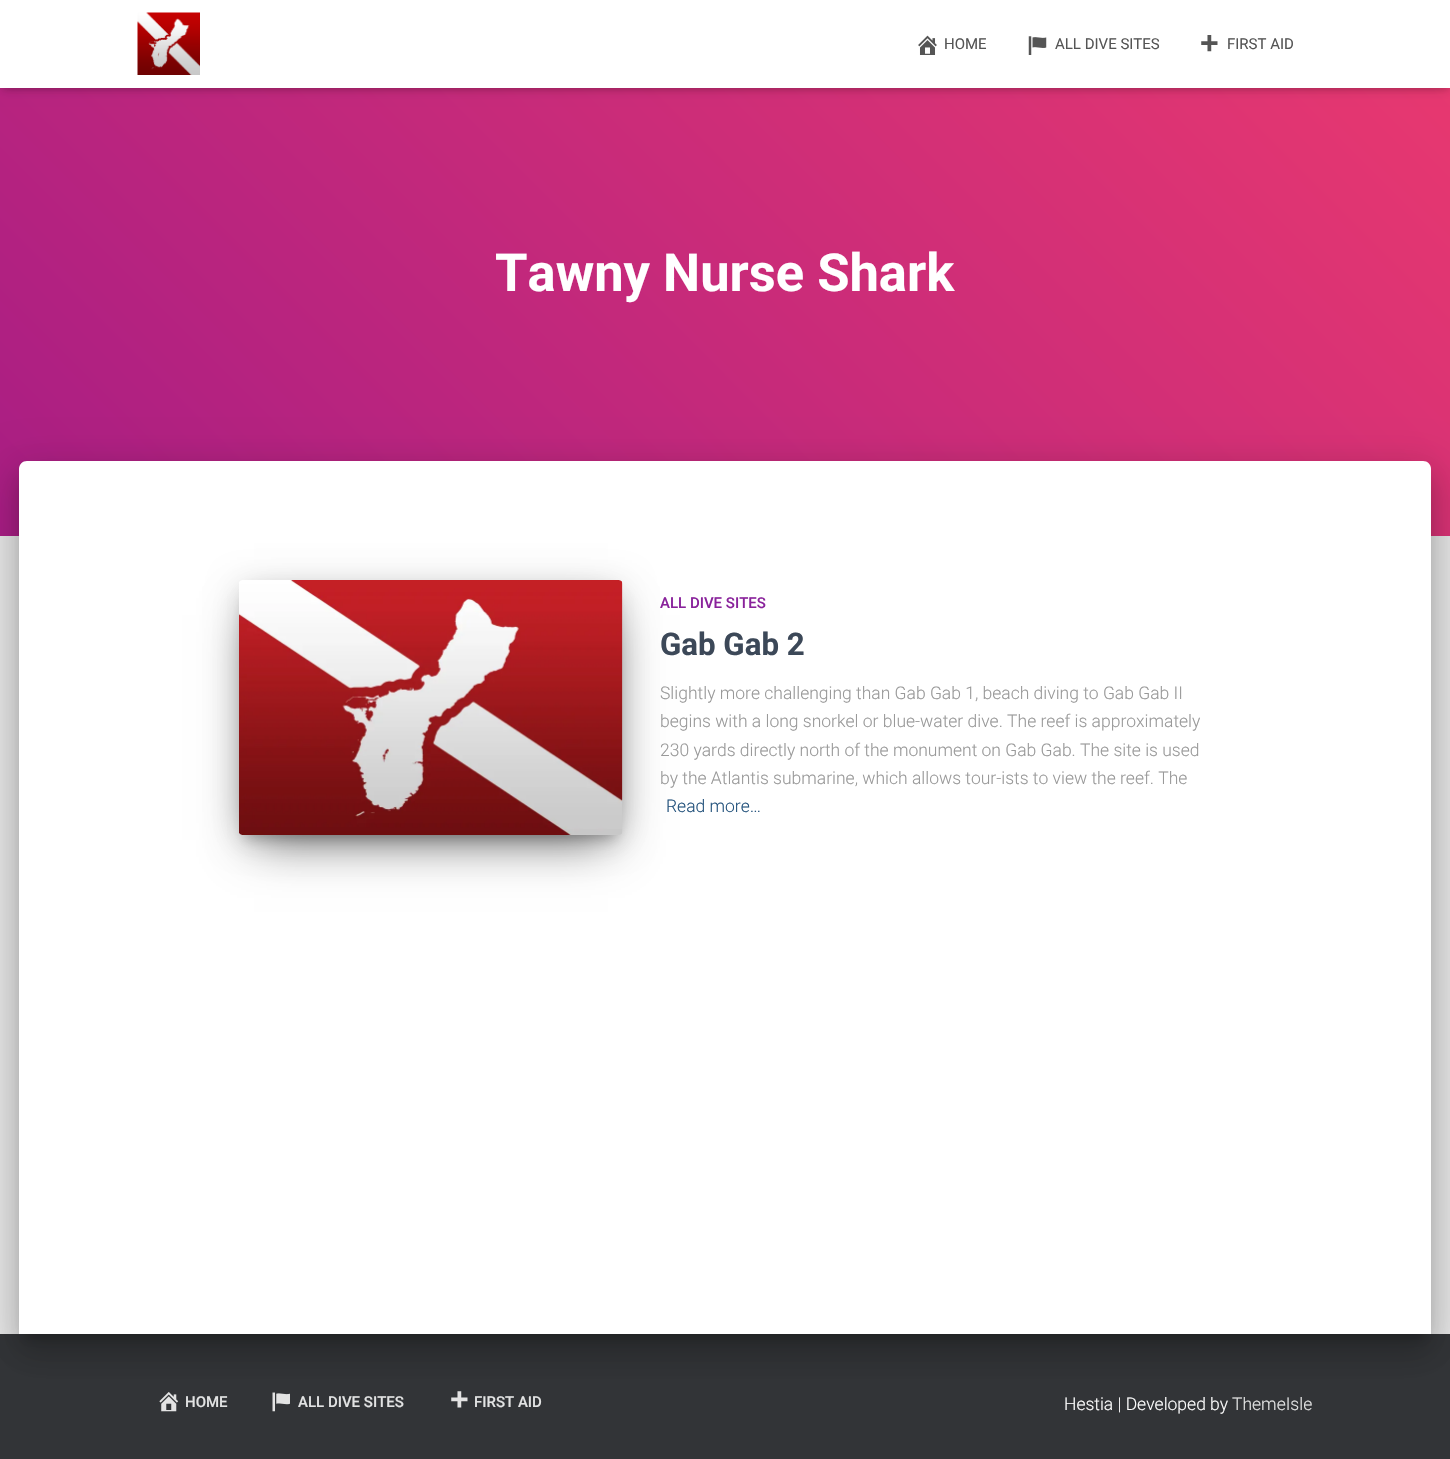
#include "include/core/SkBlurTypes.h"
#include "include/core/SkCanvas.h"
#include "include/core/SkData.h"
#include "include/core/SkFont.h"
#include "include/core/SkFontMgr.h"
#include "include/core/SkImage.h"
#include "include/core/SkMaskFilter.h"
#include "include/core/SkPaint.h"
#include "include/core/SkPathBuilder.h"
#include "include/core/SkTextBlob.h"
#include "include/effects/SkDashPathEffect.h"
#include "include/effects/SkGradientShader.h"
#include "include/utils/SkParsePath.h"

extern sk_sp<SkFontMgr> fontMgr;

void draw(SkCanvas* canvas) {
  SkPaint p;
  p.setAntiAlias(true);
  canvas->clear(SkColorSetRGB(229, 229, 229));
  {
    const SkColor colors[] = {SkColorSetRGB(168, 29, 132), SkColorSetRGB(234, 57, 111)};
    const float stops[] = {0, 1};
    const SkPoint ends[] = {{228, 765}, {1222, -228}};
    p.setShader(SkGradientShader::MakeLinear(ends, colors, stops, 2, SkTileMode::kClamp));
    p.setAlpha(255);
  }
  canvas->drawRect(SkRect::MakeLTRB(0, 88, 1450, 536), p);
  p.setShader(nullptr);
  p.setColor(SkColorSetARGB(26, 0, 0, 0));
  p.setMaskFilter(SkMaskFilter::MakeBlur(kNormal_SkBlurStyle, 3));
  canvas->drawRect(SkRect::MakeLTRB(3, 8, 1448, 90), p);
  p.setMaskFilter(nullptr);
  p.setColor(SkColorSetARGB(31, 0, 0, 0));
  p.setMaskFilter(SkMaskFilter::MakeBlur(kNormal_SkBlurStyle, 6));
  canvas->drawRect(SkRect::MakeLTRB(0, 1, 1450, 89), p);
  p.setMaskFilter(nullptr);
  p.setColor(SkColorSetARGB(107, 0, 0, 0));
  p.setMaskFilter(SkMaskFilter::MakeBlur(kNormal_SkBlurStyle, 6));
  canvas->drawRect(SkRect::MakeLTRB(8, 9, 1443, 81), p);
  p.setMaskFilter(nullptr);
  p.setColor(SK_ColorWHITE);
  canvas->drawRect(SkRect::MakeLTRB(0, 0, 1450, 88), p);
  canvas->drawImageRect(SkImages::DeferredFromEncodedData(SkData::MakeFromFileName("images/1.png")), SkRect::MakeLTRB(137, 12, 200, 75), SkSamplingOptions());
  canvas->drawImageRect(SkImages::DeferredFromEncodedData(SkData::MakeFromFileName("images/2.png")), SkRect::MakeLTRB(918, 35, 937, 55), SkSamplingOptions());
  canvas->drawImageRect(SkImages::DeferredFromEncodedData(SkData::MakeFromFileName("images/3.png")), SkRect::MakeLTRB(1028, 36, 1047, 55), SkSamplingOptions());
  canvas->drawImageRect(SkImages::DeferredFromEncodedData(SkData::MakeFromFileName("images/4.png")), SkRect::MakeLTRB(1201, 35, 1218, 52), SkSamplingOptions());
  p.setColor(SkColorSetRGB(50, 52, 55));
  canvas->drawRect(SkRect::MakeLTRB(0, 1334, 1450, 1459), p);
  p.setColor(SkColorSetARGB(51, 0, 0, 0));
  p.setMaskFilter(SkMaskFilter::MakeBlur(kNormal_SkBlurStyle, 6));
  canvas->drawRoundRect(SkRect::MakeLTRB(25, 478, 1425, 1338), 1, 1, p);
  p.setMaskFilter(nullptr);
  p.setColor(SkColorSetARGB(31, 0, 0, 0));
  p.setMaskFilter(SkMaskFilter::MakeBlur(kNormal_SkBlurStyle, 19));
  canvas->drawRoundRect(SkRect::MakeLTRB(13, 463, 1438, 1348), 14, 14, p);
  p.setMaskFilter(nullptr);
  p.setColor(SkColorSetARGB(36, 0, 0, 0));
  p.setMaskFilter(SkMaskFilter::MakeBlur(kNormal_SkBlurStyle, 15));
  canvas->drawRoundRect(SkRect::MakeLTRB(16, 479, 1434, 1356), 10, 10, p);
  p.setMaskFilter(nullptr);
  p.setColor(SK_ColorWHITE);
  canvas->drawPath(SkPathBuilder().moveTo(27, 461).lineTo(1423, 461).cubicTo(1427.5f, 461, 1431, 464.5f, 1431, 469).lineTo(1431, 1334).lineTo(19, 1334).lineTo(19, 469).cubicTo(19, 464.5f, 22.5f, 461, 27, 461).close().detach(), p);
  p.setColor(SkColorSetARGB(51, 0, 0, 0));
  p.setMaskFilter(SkMaskFilter::MakeBlur(kNormal_SkBlurStyle, 6));
  canvas->drawRect(SkRect::MakeLTRB(245, 596, 616, 839), p);
  p.setMaskFilter(nullptr);
  p.setColor(SkColorSetARGB(31, 0, 0, 0));
  p.setMaskFilter(SkMaskFilter::MakeBlur(kNormal_SkBlurStyle, 15.5f));
  canvas->drawRoundRect(SkRect::MakeLTRB(239, 585, 623, 840), 4, 4, p);
  p.setMaskFilter(nullptr);
  p.setColor(SkColorSetARGB(143, 0, 0, 0));
  p.setMaskFilter(SkMaskFilter::MakeBlur(kNormal_SkBlurStyle, 24));
  canvas->drawRect(SkRect::MakeLTRB(254, 615, 608, 840), p);
  p.setMaskFilter(nullptr);
  canvas->drawImageRect(SkImages::DeferredFromEncodedData(SkData::MakeFromFileName("images/5.png")), SkRect::MakeLTRB(239, 580, 623, 835), SkSamplingOptions());
  canvas->drawImageRect(SkImages::DeferredFromEncodedData(SkData::MakeFromFileName("images/6.png")), SkRect::MakeLTRB(159, 1392, 179, 1412), SkSamplingOptions());
  canvas->drawImageRect(SkImages::DeferredFromEncodedData(SkData::MakeFromFileName("images/7.png")), SkRect::MakeLTRB(272, 1392, 290, 1412), SkSamplingOptions());
  canvas->drawImageRect(SkImages::DeferredFromEncodedData(SkData::MakeFromFileName("images/8.png")), SkRect::MakeLTRB(451, 1391, 468, 1408), SkSamplingOptions());
  SkFont font1(fontMgr->matchFamilyStyle("Roboto", SkFontStyle::Normal()), 15);
  font1.setSubpixel(true);
  p.setColor(SkColorSetRGB(85, 85, 85));
  canvas->drawString("HOME", 944, 49, font1, p);
  canvas->drawString("ALL DIVE SITES", 1055, 49, font1, p);
  canvas->drawString("FIRST AID", 1227, 49, font1, p);
  SkFont font2(fontMgr->matchFamilyStyle("Roboto", SkFontStyle::Bold()), 52.5f);
  font2.setSubpixel(true);
  p.setColor(SK_ColorWHITE);
  canvas->drawString("Tawny Nurse Shark", 495, 291, font2, p);
  SkFont font3(fontMgr->matchFamilyStyle("Roboto", SkFontStyle(500, SkFontStyle::kNormal_Width, SkFontStyle::kUpright_Slant)), 15);
  font3.setSubpixel(true);
  p.setColor(SkColorSetRGB(137, 34, 155));
  canvas->drawString("ALL DIVE SITES", 660, 608, font3, p);
  SkFont font4(fontMgr->matchFamilyStyle("Roboto", SkFontStyle::Bold()), 31.25f);
  font4.setSubpixel(true);
  p.setColor(SkColorSetRGB(60, 72, 88));
  canvas->drawString("Gab Gab 2", 660, 655, font4, p);
  SkFont font5(fontMgr->matchFamilyStyle("Roboto", SkFontStyle(300, SkFontStyle::kNormal_Width, SkFontStyle::kUpright_Slant)), 17.5f);
  font5.setSubpixel(true);
  p.setColor(SkColorSetRGB(153, 153, 153));
  canvas->drawString("Slightly more challenging than Gab Gab 1, beach diving to Gab Gab II", 660, 699, font5, p);
  canvas->drawString("begins with a long snorkel or blue-water dive. The reef is approximately", 660, 727, font5, p);
  canvas->drawString("230 yards directly north of the monument on Gab Gab. The site is used", 660, 756, font5, p);
  canvas->drawString("by the Atlantis submarine, which allows tour-ists to view the reef. The", 660, 784, font5, p);
  p.setColor(SkColorSetRGB(35, 82, 124));
  canvas->drawString("Read more…", 666, 812, font5, p);
  p.setColor(SkColorSetRGB(226, 227, 227));
  canvas->drawString("HOME", 185, 1407, font3, p);
  canvas->drawString("ALL DIVE SITES", 298, 1407, font3, p);
  canvas->drawString("FIRST AID", 474, 1407, font3, p);
  p.setColor(SK_ColorWHITE);
  canvas->drawString("Hestia | Developed by", 1064, 1410, font5, p);
  p.setColor(SkColorSetRGB(226, 227, 227));
  canvas->drawString("ThemeIsle", 1232, 1410, font5, p);
}
